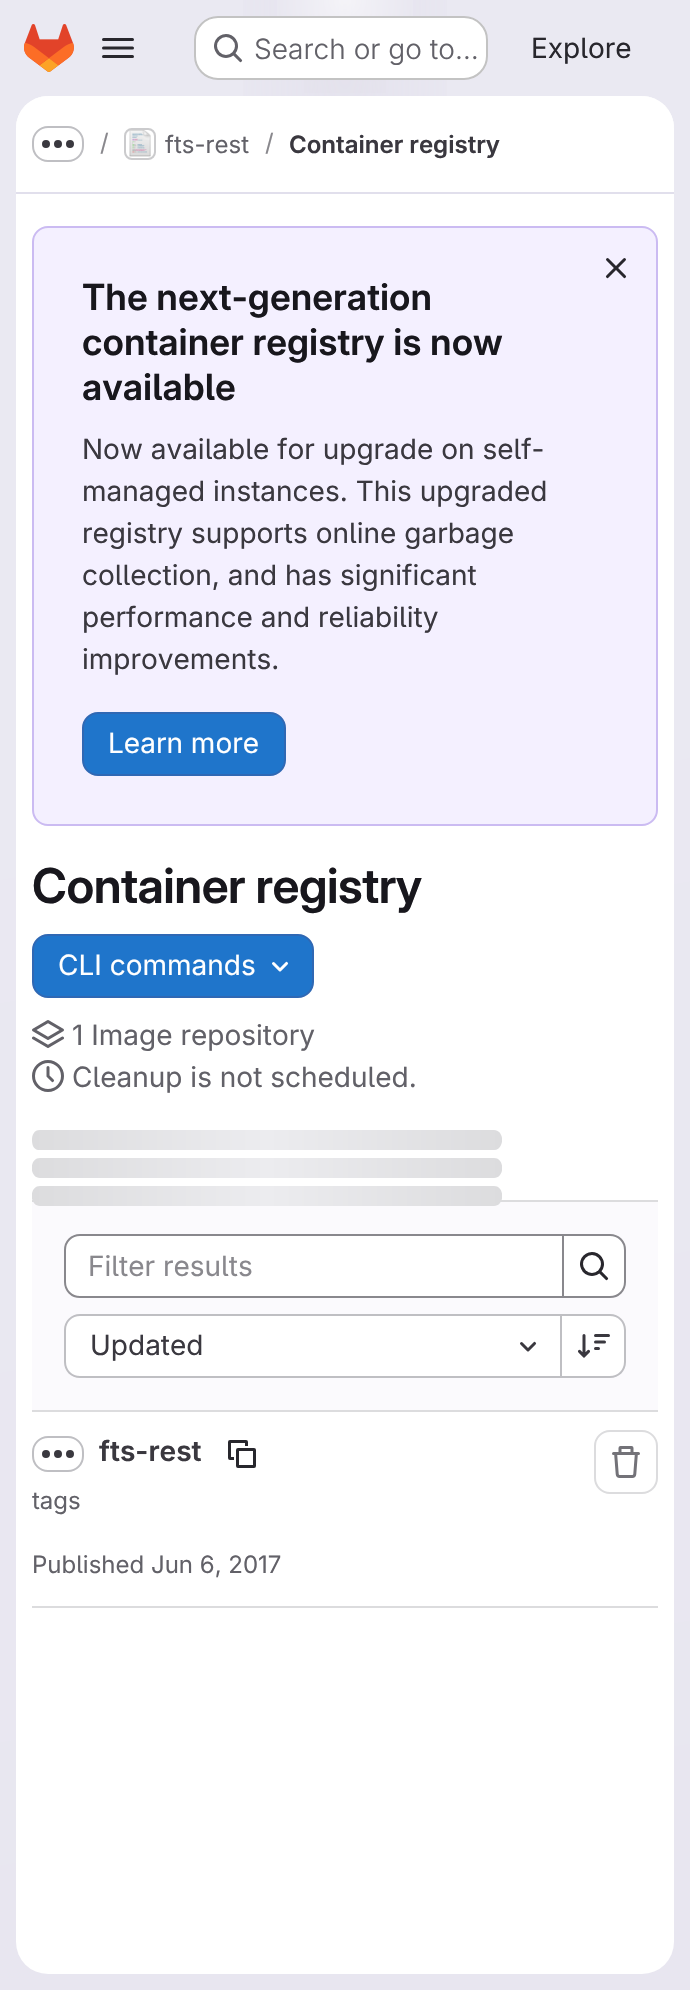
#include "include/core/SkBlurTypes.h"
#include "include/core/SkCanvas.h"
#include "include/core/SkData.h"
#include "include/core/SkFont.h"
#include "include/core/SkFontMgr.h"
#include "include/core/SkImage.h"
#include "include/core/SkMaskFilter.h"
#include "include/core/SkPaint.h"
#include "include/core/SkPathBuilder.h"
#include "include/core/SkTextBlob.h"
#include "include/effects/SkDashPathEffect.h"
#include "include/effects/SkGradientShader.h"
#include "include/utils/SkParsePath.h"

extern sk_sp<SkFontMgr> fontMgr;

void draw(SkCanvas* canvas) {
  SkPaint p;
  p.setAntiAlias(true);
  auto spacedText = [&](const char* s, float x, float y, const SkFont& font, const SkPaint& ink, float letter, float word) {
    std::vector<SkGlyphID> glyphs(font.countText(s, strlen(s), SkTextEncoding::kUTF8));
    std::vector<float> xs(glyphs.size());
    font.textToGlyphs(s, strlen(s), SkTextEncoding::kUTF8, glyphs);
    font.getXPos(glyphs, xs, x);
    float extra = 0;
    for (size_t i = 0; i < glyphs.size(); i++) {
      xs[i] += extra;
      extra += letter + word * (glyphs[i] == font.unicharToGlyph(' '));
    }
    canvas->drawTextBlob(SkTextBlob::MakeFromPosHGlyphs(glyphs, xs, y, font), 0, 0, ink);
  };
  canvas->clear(SK_ColorWHITE);
  {
    const SkColor colors[] = {SkColorSetRGB(232, 230, 240), SkColorSetRGB(234, 233, 242)};
    const float stops[] = {0, 0.7f};
    const SkPoint ends[] = {{526, 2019}, {164, -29}};
    p.setShader(SkGradientShader::MakeLinear(ends, colors, stops, 2, SkTileMode::kClamp));
    p.setAlpha(255);
  }
  canvas->drawRect(SkRect::MakeLTRB(0, 0, 690, 1990), p);
  {
    const SkColor colors[] = {SkColorSetRGB(228, 226, 237), SkColorSetARGB(0, 228, 226, 237)};
    const float stops[] = {0, 0.41f};
    SkMatrix m = SkMatrix::Translate(345, 0).preScale(345, 1990);
    p.setShader(SkGradientShader::MakeRadial({0, 0}, 1, colors, stops, 2, SkTileMode::kClamp, 0, &m));
    p.setAlpha(255);
  }
  canvas->drawRect(SkRect::MakeLTRB(243, 0, 447, 96), p);
  {
    const SkColor colors[] = {SkColorSetRGB(228, 226, 236), SkColorSetARGB(0, 228, 226, 236)};
    const float stops[] = {0, 0.29f};
    SkMatrix m = SkMatrix::Translate(345, 0).preScale(345, 1990);
    p.setShader(SkGradientShader::MakeRadial({0, 0}, 1, colors, stops, 2, SkTileMode::kClamp, 0, &m));
    p.setAlpha(255);
  }
  canvas->drawRect(SkRect::MakeLTRB(304, 20, 386, 93), p);
  {
    const SkColor colors[] = {SkColorSetARGB(153, 255, 255, 255), SkColorSetARGB(0, 255, 255, 255)};
    const float stops[] = {0, 0.04f};
    p.setShader(SkGradientShader::MakeRadial({345, 0}, 2020, colors, stops, 2, SkTileMode::kClamp));
    p.setAlpha(255);
  }
  canvas->drawRect(SkRect::MakeLTRB(277, 0, 413, 16), p);
  canvas->drawImageRect(SkImages::DeferredFromEncodedData(SkData::MakeFromFileName("images/1.png")), SkRect::MakeLTRB(24, 24, 74, 72), SkSamplingOptions());
  canvas->drawImageRect(SkImages::DeferredFromEncodedData(SkData::MakeFromFileName("images/2.png")), SkRect::MakeLTRB(102, 38, 134, 58), SkSamplingOptions());
  p.setShader(nullptr);
  p.setColor(SK_ColorWHITE);
  canvas->drawRoundRect(SkRect::MakeLTRB(194, 16, 488, 80), 24, 24, p);
  p.setStyle(SkPaint::kStroke_Style);
  p.setStrokeWidth(2);
  p.setColor(SkColorSetARGB(61, 5, 5, 6));
  canvas->drawRoundRect(SkRect::MakeLTRB(195, 17, 487, 79), 23, 23, p);
  canvas->drawImageRect(SkImages::DeferredFromEncodedData(SkData::MakeFromFileName("images/3.png")), SkRect::MakeLTRB(214, 34, 243, 63), SkSamplingOptions());
  p.setStyle(SkPaint::kFill_Style);
  p.setColor(SK_ColorWHITE);
  canvas->drawRoundRect(SkRect::MakeLTRB(16, 96, 674, 1974), 32, 32, p);
  canvas->drawPath(SkPathBuilder().moveTo(48, 96).lineTo(642, 96).cubicTo(659.5f, 96, 674, 110.5f, 674, 128).lineTo(674, 194).lineTo(16, 194).lineTo(16, 128).cubicTo(16, 110.5f, 30.5f, 96, 48, 96).close().detach(), p);
  p.setColor(SkColorSetRGB(225, 223, 236));
  canvas->drawRect(SkRect::MakeLTRB(16, 192, 674, 194), p);
  p.setStyle(SkPaint::kStroke_Style);
  p.setColor(SkColorSetRGB(191, 191, 195));
  canvas->drawRoundRect(SkRect::MakeLTRB(33, 127, 83, 161), 15, 15, p);
  canvas->drawImageRect(SkImages::DeferredFromEncodedData(SkData::MakeFromFileName("images/4.png")), SkRect::MakeLTRB(42, 140, 74, 148), SkSamplingOptions());
  p.setColor(SkColorSetRGB(220, 220, 222));
  canvas->drawRoundRect(SkRect::MakeLTRB(125, 129, 155, 159), 7, 7, p);
  canvas->drawImageRect(SkImages::DeferredFromEncodedData(SkData::MakeFromFileName("images/5.png")), SkRect::MakeLTRB(129, 130, 151, 157), SkSamplingOptions());
  p.setColor(SkColorSetARGB(20, 5, 5, 6));
  canvas->drawRoundRect(SkRect::MakeLTRB(125, 129, 155, 159), 7, 7, p);
  p.setStyle(SkPaint::kFill_Style);
  p.setColor(SkColorSetRGB(244, 240, 255));
  canvas->drawRoundRect(SkRect::MakeLTRB(33, 227, 657, 825), 15, 15, p);
  p.setStyle(SkPaint::kStroke_Style);
  p.setColor(SkColorSetRGB(203, 187, 242));
  canvas->drawRoundRect(SkRect::MakeLTRB(33, 227, 657, 825), 15, 15, p);
  canvas->drawImageRect(SkImages::DeferredFromEncodedData(SkData::MakeFromFileName("images/6.png")), SkRect::MakeLTRB(605, 258, 627, 279), SkSamplingOptions());
  p.setStyle(SkPaint::kFill_Style);
  p.setColor(SkColorSetRGB(31, 117, 203));
  canvas->drawRoundRect(SkRect::MakeLTRB(83, 713, 285, 775), 15, 15, p);
  p.setStyle(SkPaint::kStroke_Style);
  p.setColor(SkColorSetRGB(47, 104, 180));
  canvas->drawRoundRect(SkRect::MakeLTRB(83, 713, 285, 775), 15, 15, p);
  p.setStyle(SkPaint::kFill_Style);
  p.setColor(SkColorSetRGB(31, 117, 203));
  canvas->drawRoundRect(SkRect::MakeLTRB(33, 935, 313, 997), 15, 15, p);
  p.setStyle(SkPaint::kStroke_Style);
  p.setColor(SkColorSetRGB(47, 104, 180));
  canvas->drawRoundRect(SkRect::MakeLTRB(33, 935, 313, 997), 15, 15, p);
  canvas->drawImageRect(SkImages::DeferredFromEncodedData(SkData::MakeFromFileName("images/7.png")), SkRect::MakeLTRB(272, 961, 289, 972), SkSamplingOptions());
  canvas->drawImageRect(SkImages::DeferredFromEncodedData(SkData::MakeFromFileName("images/8.png")), SkRect::MakeLTRB(32, 1020, 64, 1048), SkSamplingOptions());
  canvas->drawImageRect(SkImages::DeferredFromEncodedData(SkData::MakeFromFileName("images/9.png")), SkRect::MakeLTRB(32, 1060, 64, 1092), SkSamplingOptions());
  p.setStyle(SkPaint::kFill_Style);
  p.setColor(SkColorSetRGB(251, 250, 253));
  canvas->drawRect(SkRect::MakeLTRB(32, 1202, 658, 1410), p);
  p.setColor(SkColorSetRGB(220, 220, 222));
  canvas->drawRect(SkRect::MakeLTRB(32, 1200, 658, 1202), p);
  canvas->save();
  canvas->clipRect(SkRect::MakeLTRB(32, 1130, 502, 1206));
  {
    const SkColor colors[] = {SkColorSetRGB(220, 220, 222), SkColorSetRGB(236, 236, 239), SkColorSetRGB(220, 220, 222)};
    const float stops[] = {0, 0.5f, 1};
    const SkPoint ends[] = {{32, 1130}, {502, 1130}};
    p.setShader(SkGradientShader::MakeLinear(ends, colors, stops, 3, SkTileMode::kClamp));
    p.setAlpha(255);
  }
  canvas->drawPath(SkPathBuilder(SkPathFillType::kEvenOdd).moveTo(40, 1130).cubicTo(34, 1130, 32, 1135, 32, 1140).cubicTo(32, 1144, 33, 1149, 38, 1150).lineTo(494, 1150).cubicTo(497, 1150, 500, 1148, 501, 1145).cubicTo(504, 1139, 501, 1130, 494, 1130).close().moveTo(40, 1158).cubicTo(29, 1158, 29, 1178, 40, 1178).lineTo(494, 1178).cubicTo(505, 1178, 505, 1158, 494, 1158).close().moveTo(40, 1186).cubicTo(29, 1186, 29, 1206, 40, 1206).lineTo(494, 1206).cubicTo(505, 1206, 505, 1186, 494, 1186).close().detach(), p);
  canvas->restore();
  p.setShader(nullptr);
  p.setColor(SkColorSetRGB(220, 220, 222));
  canvas->drawRect(SkRect::MakeLTRB(32, 1410, 658, 1412), p);
  p.setColor(SK_ColorWHITE);
  canvas->drawPath(SkPathBuilder().moveTo(80, 1235).lineTo(563, 1235).lineTo(563, 1297).lineTo(80, 1297).cubicTo(71.5f, 1297, 65, 1290.5f, 65, 1282).lineTo(65, 1250).cubicTo(65, 1241.5f, 71.5f, 1235, 80, 1235).close().detach(), p);
  p.setStyle(SkPaint::kStroke_Style);
  p.setColor(SkColorSetRGB(137, 136, 141));
  canvas->drawPath(SkPathBuilder().moveTo(80, 1235).lineTo(563, 1235).lineTo(563, 1297).lineTo(80, 1297).cubicTo(71.5f, 1297, 65, 1290.5f, 65, 1282).lineTo(65, 1250).cubicTo(65, 1241.5f, 71.5f, 1235, 80, 1235).close().detach(), p);
  p.setStyle(SkPaint::kFill_Style);
  p.setColor(SK_ColorWHITE);
  canvas->drawPath(SkPathBuilder().moveTo(563, 1235).lineTo(610, 1235).cubicTo(618.5f, 1235, 625, 1241.5f, 625, 1250).lineTo(625, 1282).cubicTo(625, 1290.5f, 618.5f, 1297, 610, 1297).lineTo(563, 1297).close().detach(), p);
  p.setStyle(SkPaint::kStroke_Style);
  p.setColor(SkColorSetRGB(137, 136, 141));
  canvas->drawPath(SkPathBuilder().moveTo(563, 1235).lineTo(610, 1235).cubicTo(618.5f, 1235, 625, 1241.5f, 625, 1250).lineTo(625, 1282).cubicTo(625, 1290.5f, 618.5f, 1297, 610, 1297).lineTo(563, 1297).close().detach(), p);
  canvas->drawImageRect(SkImages::DeferredFromEncodedData(SkData::MakeFromFileName("images/10.png")), SkRect::MakeLTRB(580, 1252, 609, 1281), SkSamplingOptions());
  p.setStyle(SkPaint::kFill_Style);
  p.setColor(SK_ColorWHITE);
  canvas->drawPath(SkPathBuilder().moveTo(80, 1316).lineTo(560, 1316).lineTo(560, 1376).lineTo(80, 1376).cubicTo(72.5f, 1376, 66, 1369.5f, 66, 1362).lineTo(66, 1330).cubicTo(66, 1322.5f, 72.5f, 1316, 80, 1316).close().detach(), p);
  p.setColor(SkColorSetRGB(191, 191, 195));
  canvas->drawPath(SkPathBuilder(SkPathFillType::kEvenOdd).moveTo(80, 1314).lineTo(560, 1314).lineTo(560, 1378).lineTo(80, 1378).cubicTo(71, 1378, 64, 1371, 64, 1362).lineTo(64, 1330).cubicTo(64, 1321, 71, 1314, 80, 1314).close().moveTo(80, 1316).lineTo(560, 1316).lineTo(560, 1376).lineTo(80, 1376).cubicTo(72, 1376, 66, 1370, 66, 1362).lineTo(66, 1330).cubicTo(66, 1322, 72, 1316, 80, 1316).close().detach(), p);
  canvas->drawImageRect(SkImages::DeferredFromEncodedData(SkData::MakeFromFileName("images/11.png")), SkRect::MakeLTRB(520, 1341, 537, 1352), SkSamplingOptions());
  p.setColor(SK_ColorWHITE);
  canvas->drawPath(SkPathBuilder().moveTo(562, 1316).lineTo(610, 1316).cubicTo(617.5f, 1316, 624, 1322.5f, 624, 1330).lineTo(624, 1362).cubicTo(624, 1369.5f, 617.5f, 1376, 610, 1376).lineTo(562, 1376).close().detach(), p);
  p.setColor(SkColorSetRGB(191, 191, 195));
  canvas->drawPath(SkPathBuilder(SkPathFillType::kEvenOdd).moveTo(562, 1314).lineTo(610, 1314).cubicTo(619, 1314, 626, 1321, 626, 1330).lineTo(626, 1362).cubicTo(626, 1371, 619, 1378, 610, 1378).lineTo(562, 1378).close().moveTo(562, 1316).lineTo(610, 1316).cubicTo(618, 1316, 624, 1322, 624, 1330).lineTo(624, 1362).cubicTo(624, 1370, 618, 1376, 610, 1376).lineTo(562, 1376).close().detach(), p);
  canvas->drawRect(SkRect::MakeLTRB(560, 1314, 562, 1378), p);
  canvas->drawImageRect(SkImages::DeferredFromEncodedData(SkData::MakeFromFileName("images/12.png")), SkRect::MakeLTRB(578, 1334, 610, 1358), SkSamplingOptions());
  p.setColor(SkColorSetRGB(220, 220, 222));
  canvas->drawRect(SkRect::MakeLTRB(32, 1606, 658, 1608), p);
  p.setStyle(SkPaint::kStroke_Style);
  p.setColor(SkColorSetRGB(191, 191, 195));
  canvas->drawRoundRect(SkRect::MakeLTRB(33, 1437, 83, 1471), 15, 15, p);
  canvas->drawImageRect(SkImages::DeferredFromEncodedData(SkData::MakeFromFileName("images/4.png")), SkRect::MakeLTRB(42, 1450, 74, 1458), SkSamplingOptions());
  canvas->drawImageRect(SkImages::DeferredFromEncodedData(SkData::MakeFromFileName("images/13.png")), SkRect::MakeLTRB(228, 1440, 256, 1468), SkSamplingOptions());
  p.setColor(SkColorSetRGB(220, 220, 222));
  canvas->drawRoundRect(SkRect::MakeLTRB(595, 1431, 657, 1493), 15, 15, p);
  canvas->drawImageRect(SkImages::DeferredFromEncodedData(SkData::MakeFromFileName("images/14.png")), SkRect::MakeLTRB(612, 1446, 640, 1478), SkSamplingOptions());
  SkFont font1(fontMgr->matchFamilyStyle("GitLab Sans", SkFontStyle(300, SkFontStyle::kNormal_Width, SkFontStyle::kUpright_Slant)), 28);
  font1.setSubpixel(true);
  p.setStyle(SkPaint::kFill_Style);
  p.setColor(SkColorSetRGB(98, 97, 104));
  canvas->drawString("Search or go to…", 254, 59, font1, p);
  SkFont font2(fontMgr->matchFamilyStyle("GitLab Sans", SkFontStyle::Normal()), 28);
  font2.setSubpixel(true);
  p.setColor(SkColorSetRGB(40, 39, 45));
  canvas->drawString("Explore", 531, 58, font2, p);
  SkFont font3(fontMgr->matchFamilyStyle("GitLab Sans", SkFontStyle::Normal()), 24);
  font3.setSubpixel(true);
  p.setColor(SkColorSetRGB(137, 136, 141));
  canvas->drawString("/", 100, 151, font3, p);
  p.setColor(SkColorSetRGB(98, 97, 104));
  canvas->drawString("fts-rest", 165, 153, font3, p);
  p.setColor(SkColorSetRGB(137, 136, 141));
  canvas->drawString("/", 265, 151, font3, p);
  SkFont font4(fontMgr->matchFamilyStyle("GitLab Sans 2", SkFontStyle(600, SkFontStyle::kNormal_Width, SkFontStyle::kUpright_Slant)), 24);
  font4.setSubpixel(true);
  p.setColor(SkColorSetRGB(58, 56, 63));
  canvas->drawString("Container registry", 289, 153, font4, p);
  SkFont font5(fontMgr->matchFamilyStyle("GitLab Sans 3", SkFontStyle(600, SkFontStyle::kNormal_Width, SkFontStyle::kUpright_Slant)), 36);
  font5.setSubpixel(true);
  p.setColor(SkColorSetRGB(24, 23, 29));
  canvas->drawString("The next-generation", 82, 310, font5, p);
  canvas->drawString("container registry is now", 82, 355, font5, p);
  canvas->drawString("available", 82, 400, font5, p);
  p.setColor(SkColorSetRGB(58, 56, 63));
  canvas->drawString("Now available for upgrade on self-", 82, 459, font2, p);
  canvas->drawString("managed instances. This upgraded", 82, 501, font2, p);
  canvas->drawString("registry supports online garbage", 82, 543, font2, p);
  canvas->drawString("collection, and has significant", 82, 585, font2, p);
  canvas->drawString("performance and reliability", 82, 627, font2, p);
  canvas->drawString("improvements.", 82, 669, font2, p);
  p.setColor(SK_ColorWHITE);
  canvas->drawString("Learn more", 108, 753, font2, p);
  SkFont font6(fontMgr->matchFamilyStyle("GitLab Sans", SkFontStyle(600, SkFontStyle::kNormal_Width, SkFontStyle::kUpright_Slant)), 48);
  font6.setSubpixel(true);
  p.setColor(SkColorSetRGB(24, 23, 29));
  spacedText("Container registry", 32, 903, font6, p, -0.5f, 0);
  p.setColor(SK_ColorWHITE);
  canvas->drawString("CLI commands", 58, 975, font2, p);
  p.setColor(SkColorSetRGB(98, 97, 104));
  canvas->drawString("1 Image repository", 72, 1045, font2, p);
  canvas->drawString("Cleanup is not scheduled.", 72, 1087, font2, p);
  p.setColor(SkColorSetRGB(137, 136, 141));
  canvas->drawString("Filter results", 88, 1276, font2, p);
  p.setColor(SkColorSetRGB(58, 56, 63));
  canvas->drawString("Updated", 90, 1355, font2, p);
  SkFont font7(fontMgr->matchFamilyStyle("GitLab Sans 2", SkFontStyle(600, SkFontStyle::kNormal_Width, SkFontStyle::kUpright_Slant)), 28);
  font7.setSubpixel(true);
  canvas->drawString("fts-rest", 99, 1461, font7, p);
  p.setColor(SkColorSetRGB(98, 97, 104));
  canvas->drawString("tags", 32, 1509, font3, p);
  canvas->drawString("Published Jun 6, 2017", 32, 1573, font3, p);
}
